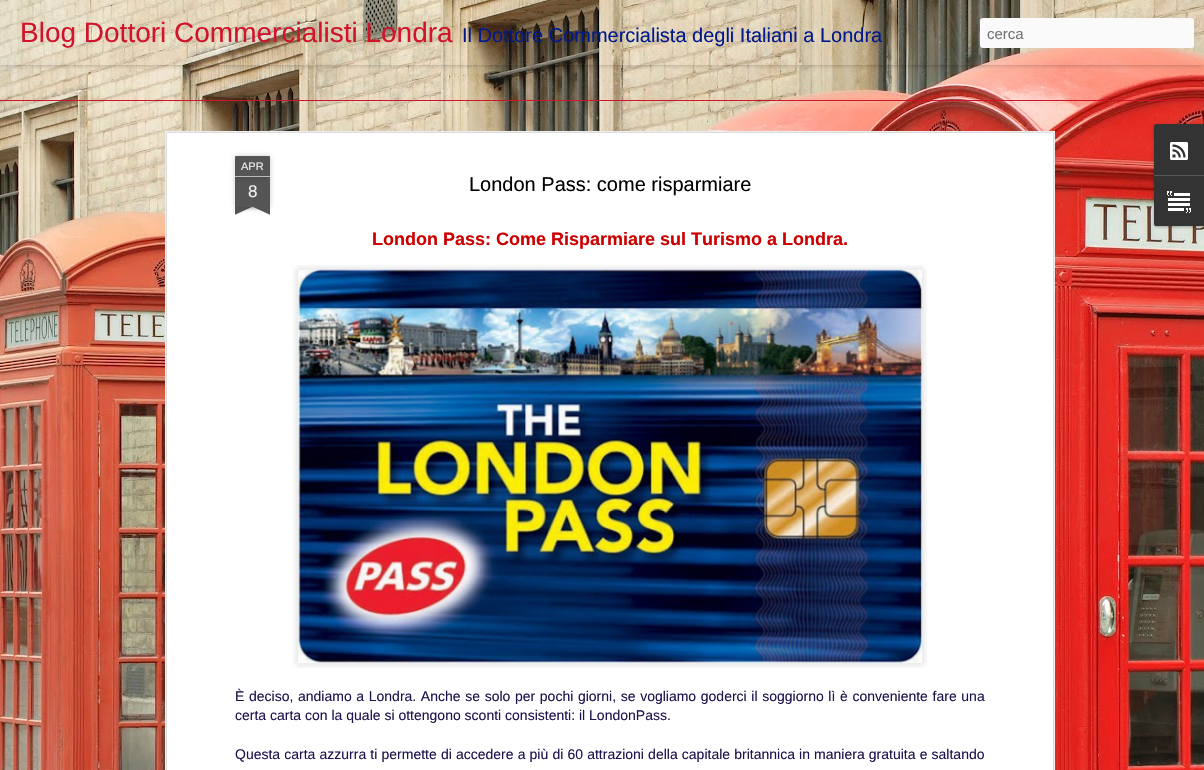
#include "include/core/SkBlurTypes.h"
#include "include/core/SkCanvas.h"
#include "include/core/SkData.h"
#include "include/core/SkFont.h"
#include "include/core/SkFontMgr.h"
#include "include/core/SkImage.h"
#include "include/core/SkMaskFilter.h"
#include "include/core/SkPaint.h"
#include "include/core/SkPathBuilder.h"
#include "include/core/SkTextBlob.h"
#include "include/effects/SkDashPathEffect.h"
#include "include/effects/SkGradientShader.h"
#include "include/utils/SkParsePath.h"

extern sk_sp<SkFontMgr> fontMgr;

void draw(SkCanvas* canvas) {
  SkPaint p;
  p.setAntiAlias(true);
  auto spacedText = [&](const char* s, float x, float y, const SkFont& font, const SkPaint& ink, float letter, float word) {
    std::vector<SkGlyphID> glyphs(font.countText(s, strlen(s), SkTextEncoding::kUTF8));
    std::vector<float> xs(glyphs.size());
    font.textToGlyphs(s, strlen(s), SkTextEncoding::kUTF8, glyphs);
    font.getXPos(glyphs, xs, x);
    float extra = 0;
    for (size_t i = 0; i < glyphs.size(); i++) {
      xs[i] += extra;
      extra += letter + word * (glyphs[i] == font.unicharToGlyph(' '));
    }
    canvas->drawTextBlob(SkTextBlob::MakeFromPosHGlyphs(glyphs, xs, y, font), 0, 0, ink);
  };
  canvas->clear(SK_ColorWHITE);
  canvas->drawImageRect(SkImages::DeferredFromEncodedData(SkData::MakeFromFileName("images/1.png")), SkRect::MakeLTRB(0, 65, 1204, 100), SkSamplingOptions());
  p.setColor(SkColorSetARGB(77, 0, 0, 0));
  p.setMaskFilter(SkMaskFilter::MakeBlur(kNormal_SkBlurStyle, 2.5f));
  canvas->drawRect(SkRect::MakeLTRB(0, 0, 1204, 65), p);
  p.setMaskFilter(nullptr);
  canvas->drawImageRect(SkImages::DeferredFromEncodedData(SkData::MakeFromFileName("images/2.png")), SkRect::MakeLTRB(0, 0, 1204, 65), SkSamplingOptions());
  p.setColor(SkColorSetRGB(250, 250, 250));
  canvas->drawRoundRect(SkRect::MakeLTRB(980, 18, 1194, 48), 3, 3, p);
  p.setColor(SkColorSetRGB(207, 20, 43));
  canvas->drawRect(SkRect::MakeLTRB(0, 100, 1204, 101), p);
  canvas->drawImageRect(SkImages::DeferredFromEncodedData(SkData::MakeFromFileName("images/3.png")), SkRect::MakeLTRB(0, 101, 1204, 770), SkSamplingOptions());
  p.setColor(SK_ColorWHITE);
  canvas->drawRect(SkRect::MakeLTRB(165, 131, 1055, 770), p);
  canvas->drawImageRect(SkImages::DeferredFromEncodedData(SkData::MakeFromFileName("images/4.png")), SkRect::MakeLTRB(165, 131, 1055, 770), SkSamplingOptions());
  p.setColor(SkColorSetARGB(51, 0, 0, 0));
  p.setMaskFilter(SkMaskFilter::MakeBlur(kNormal_SkBlurStyle, 2.5f));
  canvas->drawRect(SkRect::MakeLTRB(235, 177, 270, 207), p);
  p.setMaskFilter(nullptr);
  p.setColor(SkColorSetRGB(85, 85, 85));
  canvas->drawRect(SkRect::MakeLTRB(235, 177, 270, 207), p);
  p.setColor(SkColorSetARGB(51, 0, 0, 0));
  p.setMaskFilter(SkMaskFilter::MakeBlur(kNormal_SkBlurStyle, 2.5f));
  canvas->drawRoundRect(SkRect::MakeLTRB(235, 156, 270, 177), 1, 1, p);
  p.setMaskFilter(nullptr);
  p.setColor(SkColorSetRGB(85, 85, 85));
  canvas->drawPath(SkPathBuilder().moveTo(236, 156).lineTo(269, 156).cubicTo(269.5f, 156, 270, 156.5f, 270, 157).lineTo(270, 177).lineTo(235, 177).lineTo(235, 157).cubicTo(235, 156.5f, 235.5f, 156, 236, 156).close().detach(), p);
  p.setColor(SkColorSetRGB(187, 187, 187));
  canvas->drawRect(SkRect::MakeLTRB(235, 176, 270, 177), p);
  canvas->save();
  canvas->clipRect(SkRect::MakeLTRB(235, 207, 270, 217));
  p.setColor(SkColorSetARGB(51, 0, 0, 0));
  p.setMaskFilter(SkMaskFilter::MakeBlur(kNormal_SkBlurStyle, 2.5f));
  canvas->drawRect(SkRect::MakeLTRB(226, 197, 276, 207), p);
  p.setMaskFilter(nullptr);
  canvas->restore();
  canvas->save();
  canvas->clipRect(SkRect::MakeLTRB(235, 207, 270, 217));
  p.setColor(SkColorSetRGB(85, 85, 85));
  canvas->drawPath(SkPathBuilder().moveTo(226, 208).lineTo(272, 187).lineTo(276, 196).lineTo(230, 217).close().detach(), p);
  canvas->restore();
  canvas->save();
  canvas->clipRect(SkRect::MakeLTRB(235, 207, 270, 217));
  p.setColor(SkColorSetARGB(51, 0, 0, 0));
  p.setMaskFilter(SkMaskFilter::MakeBlur(kNormal_SkBlurStyle, 2.5f));
  canvas->drawRect(SkRect::MakeLTRB(229, 197, 279, 207), p);
  p.setMaskFilter(nullptr);
  canvas->restore();
  canvas->save();
  canvas->clipRect(SkRect::MakeLTRB(235, 207, 270, 217));
  p.setColor(SkColorSetRGB(85, 85, 85));
  canvas->drawPath(SkPathBuilder().moveTo(233, 187).lineTo(279, 208).lineTo(275, 217).lineTo(229, 196).close().detach(), p);
  canvas->restore();
  canvas->drawImageRect(SkImages::DeferredFromEncodedData(SkData::MakeFromFileName("images/5.png")), SkRect::MakeLTRB(293, 265, 927, 668), SkSamplingOptions());
  canvas->drawImageRect(SkImages::DeferredFromEncodedData(SkData::MakeFromFileName("images/6.png")), SkRect::MakeLTRB(298, 269, 923, 664), SkSamplingOptions());
  p.setColor(SkColorSetARGB(77, 0, 0, 0));
  p.setMaskFilter(SkMaskFilter::MakeBlur(kNormal_SkBlurStyle, 1.5f));
  canvas->drawRoundRect(SkRect::MakeLTRB(1154, 125, 1204, 227), 2, 2, p);
  p.setMaskFilter(nullptr);
  p.setColor(SkColorSetRGB(51, 51, 51));
  canvas->drawPath(SkPathBuilder().moveTo(1156, 124).lineTo(1204, 124).lineTo(1204, 175).lineTo(1154, 175).lineTo(1154, 126).cubicTo(1154, 125, 1155, 124, 1156, 124).close().detach(), p);
  canvas->drawImageRect(SkImages::DeferredFromEncodedData(SkData::MakeFromFileName("images/7.png")), SkRect::MakeLTRB(1170, 142, 1188, 160), SkSamplingOptions());
  canvas->drawPath(SkPathBuilder().moveTo(1154, 175).lineTo(1204, 175).lineTo(1204, 226).lineTo(1156, 226).cubicTo(1155, 226, 1154, 225, 1154, 224).close().detach(), p);
  p.setColor(SkColorSetRGB(88, 88, 88));
  canvas->drawRect(SkRect::MakeLTRB(1154, 175, 1204, 176), p);
  canvas->drawImageRect(SkImages::DeferredFromEncodedData(SkData::MakeFromFileName("images/8.png")), SkRect::MakeLTRB(1167, 191, 1191, 213), SkSamplingOptions());
  SkFont font1(fontMgr->matchFamilyStyle("Liberation Sans", SkFontStyle::Normal()), 28);
  font1.setSubpixel(true);
  p.setColor(SkColorSetRGB(207, 20, 43));
  canvas->drawString("Blog Dottori Commercialisti Londra", 20, 42, font1, p);
  SkFont font2(fontMgr->matchFamilyStyle("Liberation Sans", SkFontStyle::Normal()), 20);
  font2.setSubpixel(true);
  p.setColor(SkColorSetRGB(0, 25, 140));
  canvas->drawString("Il Dottore Commercialista degli Italiani a Londra", 462, 42, font2, p);
  SkFont font3(fontMgr->matchFamilyStyle("Liberation Sans", SkFontStyle::Normal()), 15);
  font3.setSubpixel(true);
  p.setColor(SkColorSetRGB(117, 117, 117));
  canvas->drawString("cerca", 987, 39, font3, p);
  SkFont font4(fontMgr->matchFamilyStyle("Liberation Sans", SkFontStyle::Normal()), 11);
  font4.setSubpixel(true);
  p.setColor(SkColorSetRGB(238, 238, 238));
  canvas->drawString("APR", 241, 170, font4, p);
  SkFont font5(fontMgr->matchFamilyStyle("Liberation Sans", SkFontStyle::Normal()), 17);
  font5.setSubpixel(true);
  canvas->drawString("8", 248, 197, font5, p);
  p.setColor(SK_ColorBLACK);
  canvas->drawString("London Pass: come risparmiare", 469, 191, font2, p);
  SkFont font6(fontMgr->matchFamilyStyle("Liberation Sans", SkFontStyle::Bold()), 18);
  font6.setSubpixel(true);
  p.setColor(SkColorSetRGB(204, 0, 0));
  canvas->drawString("London Pass: Come Risparmiare sul Turismo a Londra.", 372, 245, font6, p);
  SkFont font7(fontMgr->matchFamilyStyle("Liberation Sans", SkFontStyle::Normal()), 14);
  font7.setSubpixel(true);
  p.setColor(SkColorSetRGB(32, 18, 77));
  spacedText("È deciso, andiamo a Londra. Anche se solo per pochi giorni, se vogliamo goderci il soggiorno lì è conveniente fare una", 235, 701, font7, p, 0, 0.75f);
  canvas->drawString("certa carta con la quale si ottengono sconti consistenti: il LondonPass.", 235, 720, font7, p);
  spacedText("Questa carta azzurra ti permette di accedere a più di 60 attrazioni della capitale britannica in maniera gratuita e saltando", 235, 759, font7, p, 0, 0.25f);
}
